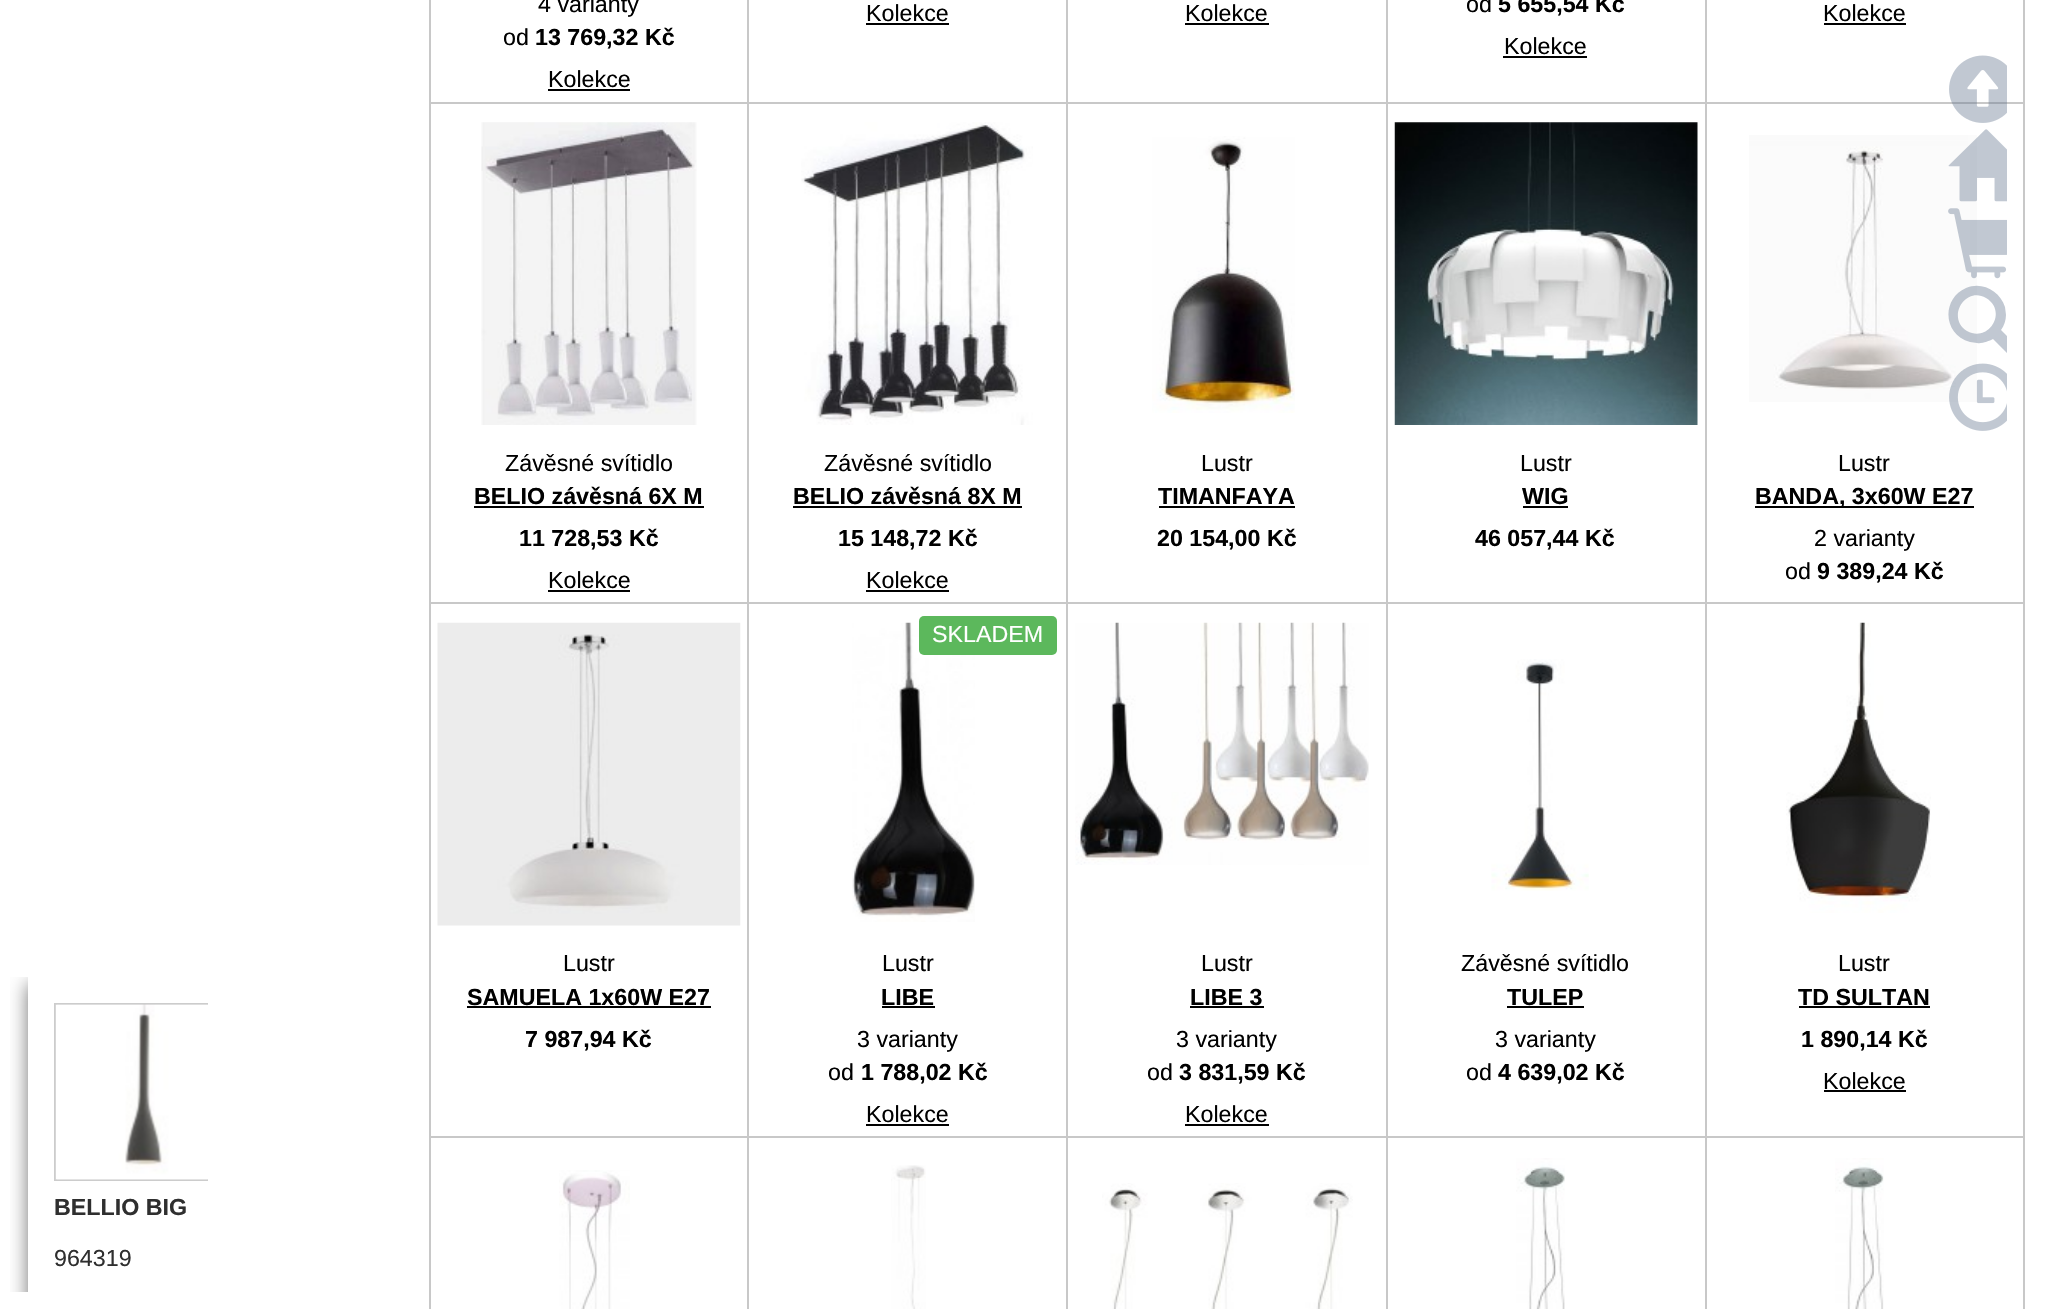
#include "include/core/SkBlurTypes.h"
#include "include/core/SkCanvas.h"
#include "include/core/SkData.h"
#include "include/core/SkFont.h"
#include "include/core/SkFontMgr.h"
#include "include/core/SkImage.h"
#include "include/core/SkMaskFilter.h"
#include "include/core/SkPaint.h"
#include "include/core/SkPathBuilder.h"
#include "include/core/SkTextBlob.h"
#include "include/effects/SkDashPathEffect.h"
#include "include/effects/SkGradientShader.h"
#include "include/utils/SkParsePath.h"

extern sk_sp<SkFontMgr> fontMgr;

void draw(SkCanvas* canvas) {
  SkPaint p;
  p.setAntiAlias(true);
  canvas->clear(SK_ColorWHITE);
  p.setColor(SkColorSetRGB(200, 200, 200));
  canvas->drawRect(SkRect::MakeLTRB(429, 0, 431, 1309), p);
  canvas->drawRect(SkRect::MakeLTRB(747, 0, 749, 103), p);
  canvas->drawRect(SkRect::MakeLTRB(431, 102, 749, 104), p);
  p.setColor(SK_ColorBLACK);
  canvas->drawRect(SkRect::MakeLTRB(548, 89, 630, 91), p);
  p.setColor(SkColorSetRGB(200, 200, 200));
  canvas->drawRect(SkRect::MakeLTRB(1066, 0, 1068, 103), p);
  canvas->drawRect(SkRect::MakeLTRB(749, 102, 1068, 104), p);
  p.setColor(SK_ColorBLACK);
  canvas->drawRect(SkRect::MakeLTRB(866, 23, 949, 25), p);
  p.setColor(SkColorSetRGB(200, 200, 200));
  canvas->drawRect(SkRect::MakeLTRB(1386, 0, 1388, 103), p);
  canvas->drawRect(SkRect::MakeLTRB(1068, 102, 1388, 104), p);
  p.setColor(SK_ColorBLACK);
  canvas->drawRect(SkRect::MakeLTRB(1185, 23, 1269, 25), p);
  p.setColor(SkColorSetRGB(200, 200, 200));
  canvas->drawRect(SkRect::MakeLTRB(1705, 0, 1707, 103), p);
  canvas->drawRect(SkRect::MakeLTRB(1388, 102, 1706, 104), p);
  p.setColor(SK_ColorBLACK);
  canvas->drawRect(SkRect::MakeLTRB(1503, 56, 1587, 58), p);
  p.setColor(SkColorSetRGB(200, 200, 200));
  canvas->drawRect(SkRect::MakeLTRB(2023, 0, 2025, 103), p);
  canvas->drawRect(SkRect::MakeLTRB(1706, 102, 2025, 104), p);
  p.setColor(SK_ColorBLACK);
  canvas->drawRect(SkRect::MakeLTRB(1824, 23, 1906, 25), p);
  p.setColor(SkColorSetRGB(200, 200, 200));
  canvas->drawRect(SkRect::MakeLTRB(747, 103, 749, 1309), p);
  canvas->drawRect(SkRect::MakeLTRB(431, 602, 749, 604), p);
  canvas->drawImageRect(SkImages::DeferredFromEncodedData(SkData::MakeFromFileName("images/1.png")), SkRect::MakeLTRB(481, 122, 697, 425), SkSamplingOptions());
  p.setColor(SK_ColorBLACK);
  canvas->drawRect(SkRect::MakeLTRB(474, 506, 704, 508), p);
  canvas->drawRect(SkRect::MakeLTRB(548, 590, 630, 592), p);
  p.setColor(SkColorSetRGB(200, 200, 200));
  canvas->drawRect(SkRect::MakeLTRB(1066, 103, 1068, 1309), p);
  canvas->drawRect(SkRect::MakeLTRB(749, 602, 1068, 604), p);
  canvas->drawImageRect(SkImages::DeferredFromEncodedData(SkData::MakeFromFileName("images/2.png")), SkRect::MakeLTRB(801, 122, 1033, 425), SkSamplingOptions());
  p.setColor(SK_ColorBLACK);
  canvas->drawRect(SkRect::MakeLTRB(793, 506, 1022, 508), p);
  canvas->drawRect(SkRect::MakeLTRB(866, 590, 949, 592), p);
  p.setColor(SkColorSetRGB(200, 200, 200));
  canvas->drawRect(SkRect::MakeLTRB(1386, 103, 1388, 1309), p);
  canvas->drawRect(SkRect::MakeLTRB(1068, 602, 1388, 604), p);
  canvas->drawImageRect(SkImages::DeferredFromEncodedData(SkData::MakeFromFileName("images/3.png")), SkRect::MakeLTRB(1152, 136, 1295, 413), SkSamplingOptions());
  p.setColor(SK_ColorBLACK);
  canvas->drawRect(SkRect::MakeLTRB(1159, 506, 1295, 508), p);
  p.setColor(SkColorSetRGB(200, 200, 200));
  canvas->drawRect(SkRect::MakeLTRB(1705, 103, 1707, 1309), p);
  canvas->drawRect(SkRect::MakeLTRB(1388, 602, 1706, 604), p);
  canvas->drawImageRect(SkImages::DeferredFromEncodedData(SkData::MakeFromFileName("images/4.png")), SkRect::MakeLTRB(1394, 122, 1698, 425), SkSamplingOptions());
  p.setColor(SK_ColorBLACK);
  canvas->drawRect(SkRect::MakeLTRB(1523, 506, 1568, 508), p);
  p.setColor(SkColorSetRGB(200, 200, 200));
  canvas->drawRect(SkRect::MakeLTRB(2023, 103, 2025, 1309), p);
  canvas->drawRect(SkRect::MakeLTRB(1706, 602, 2025, 604), p);
  canvas->drawImageRect(SkImages::DeferredFromEncodedData(SkData::MakeFromFileName("images/5.png")), SkRect::MakeLTRB(1749, 135, 1977, 402), SkSamplingOptions());
  p.setColor(SK_ColorBLACK);
  canvas->drawRect(SkRect::MakeLTRB(1755, 506, 1974, 508), p);
  p.setColor(SkColorSetRGB(200, 200, 200));
  canvas->drawRect(SkRect::MakeLTRB(431, 1136, 2025, 1138), p);
  canvas->drawImageRect(SkImages::DeferredFromEncodedData(SkData::MakeFromFileName("images/6.png")), SkRect::MakeLTRB(437, 622, 741, 926), SkSamplingOptions());
  p.setColor(SK_ColorBLACK);
  canvas->drawRect(SkRect::MakeLTRB(467, 1006, 711, 1008), p);
  canvas->drawImageRect(SkImages::DeferredFromEncodedData(SkData::MakeFromFileName("images/7.png")), SkRect::MakeLTRB(852, 622, 975, 922), SkSamplingOptions());
  p.setColor(SkColorSetRGB(92, 184, 92));
  canvas->drawRoundRect(SkRect::MakeLTRB(919, 616, 1057, 655), 5, 5, p);
  p.setColor(SK_ColorBLACK);
  canvas->drawRect(SkRect::MakeLTRB(882, 1006, 935, 1008), p);
  canvas->drawRect(SkRect::MakeLTRB(866, 1124, 949, 1126), p);
  canvas->drawImageRect(SkImages::DeferredFromEncodedData(SkData::MakeFromFileName("images/8.png")), SkRect::MakeLTRB(1075, 622, 1369, 865), SkSamplingOptions());
  canvas->drawRect(SkRect::MakeLTRB(1190, 1006, 1264, 1008), p);
  canvas->drawRect(SkRect::MakeLTRB(1185, 1124, 1269, 1126), p);
  canvas->drawImageRect(SkImages::DeferredFromEncodedData(SkData::MakeFromFileName("images/9.png")), SkRect::MakeLTRB(1491, 659, 1589, 891), SkSamplingOptions());
  canvas->drawRect(SkRect::MakeLTRB(1507, 1006, 1584, 1008), p);
  canvas->drawImageRect(SkImages::DeferredFromEncodedData(SkData::MakeFromFileName("images/10.png")), SkRect::MakeLTRB(1786, 622, 1931, 913), SkSamplingOptions());
  canvas->drawRect(SkRect::MakeLTRB(1799, 1006, 1930, 1008), p);
  canvas->drawRect(SkRect::MakeLTRB(1824, 1090, 1906, 1092), p);
  canvas->drawImageRect(SkImages::DeferredFromEncodedData(SkData::MakeFromFileName("images/11.png")), SkRect::MakeLTRB(559, 1170, 630, 1309), SkSamplingOptions());
  canvas->drawImageRect(SkImages::DeferredFromEncodedData(SkData::MakeFromFileName("images/12.png")), SkRect::MakeLTRB(891, 1165, 926, 1309), SkSamplingOptions());
  canvas->drawImageRect(SkImages::DeferredFromEncodedData(SkData::MakeFromFileName("images/13.png")), SkRect::MakeLTRB(1102, 1183, 1353, 1309), SkSamplingOptions());
  canvas->drawImageRect(SkImages::DeferredFromEncodedData(SkData::MakeFromFileName("images/14.png")), SkRect::MakeLTRB(1516, 1158, 1565, 1309), SkSamplingOptions());
  canvas->drawImageRect(SkImages::DeferredFromEncodedData(SkData::MakeFromFileName("images/15.png")), SkRect::MakeLTRB(1835, 1158, 1884, 1309), SkSamplingOptions());
  canvas->drawImageRect(SkImages::DeferredFromEncodedData(SkData::MakeFromFileName("images/16.png")), SkRect::MakeLTRB(1949, 55, 2007, 123), SkSamplingOptions());
  canvas->drawImageRect(SkImages::DeferredFromEncodedData(SkData::MakeFromFileName("images/17.png")), SkRect::MakeLTRB(1948, 129, 2007, 202), SkSamplingOptions());
  canvas->drawImageRect(SkImages::DeferredFromEncodedData(SkData::MakeFromFileName("images/18.png")), SkRect::MakeLTRB(1948, 208, 2007, 279), SkSamplingOptions());
  canvas->save();
  canvas->clipRect(SkRect::MakeLTRB(1948, 53, 2007, 432));
  p.setColor(SkColorSetARGB(105, 104, 121, 145));
  canvas->drawPath(SkPathBuilder().moveTo(1966, 288).cubicTo(1982, 281, 2000, 291, 2005, 307).lineTo(2006, 315).cubicTo(2006, 320, 2004, 326, 2001, 330).lineTo(2012, 341).cubicTo(2016, 345, 2021, 347, 2016, 352).cubicTo(2010, 358, 2009, 355, 2003, 349).lineTo(1993, 339).cubicTo(1989, 341, 1982, 344, 1977, 343).lineTo(1970, 342).cubicTo(1943, 335, 1941, 299, 1966, 288).close().moveTo(1986, 298).cubicTo(1965, 286, 1946, 318, 1967, 331).cubicTo(1989, 343, 2008, 311, 1986, 298).close().detach(), p);
  canvas->restore();
  canvas->drawImageRect(SkImages::DeferredFromEncodedData(SkData::MakeFromFileName("images/19.png")), SkRect::MakeLTRB(1949, 363, 2007, 431), SkSamplingOptions());
  canvas->save();
  canvas->clipRect(SkRect::MakeLTRB(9, 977, 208, 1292));
  canvas->clipRect(SkRect::MakeLTRB(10, 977, 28, 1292));
  p.setColor(SkColorSetRGB(116, 116, 116));
  p.setMaskFilter(SkMaskFilter::MakeBlur(kNormal_SkBlurStyle, 9));
  canvas->drawRect(SkRect::MakeLTRB(28, 984, 250, 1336), p);
  p.setMaskFilter(nullptr);
  canvas->restore();
  canvas->save();
  canvas->clipRect(SkRect::MakeLTRB(9, 977, 208, 1292));
  p.setStyle(SkPaint::kStroke_Style);
  p.setStrokeWidth(2);
  p.setColor(SkColorSetRGB(204, 204, 204));
  canvas->drawRect(SkRect::MakeLTRB(55, 1004, 232, 1180), p);
  canvas->restore();
  canvas->drawImageRect(SkImages::DeferredFromEncodedData(SkData::MakeFromFileName("images/20.png")), SkRect::MakeLTRB(55, 1004, 208, 1180), SkSamplingOptions());
  SkFont font1(fontMgr->matchFamilyStyle("Liberation Sans", SkFontStyle::Normal()), 23.25f);
  font1.setSubpixel(true);
  p.setStyle(SkPaint::kFill_Style);
  p.setColor(SK_ColorBLACK);
  canvas->drawString("4 varianty", 538, 12, font1, p);
  canvas->drawString("od", 503, 45, font1, p);
  SkFont font2(fontMgr->matchFamilyStyle("Liberation Sans", SkFontStyle::Bold()), 23.25f);
  font2.setSubpixel(true);
  canvas->drawString("13 769,32 Kč", 535, 45, font2, p);
  canvas->drawString("Kolekce", 548, 87, font1, p);
  canvas->drawString("Kolekce", 866, 21, font1, p);
  canvas->drawString("Kolekce", 1185, 21, font1, p);
  canvas->drawString("od", 1466, 12, font1, p);
  canvas->drawString("5 655,54 Kč", 1498, 12, font2, p);
  canvas->drawString("Kolekce", 1504, 54, font1, p);
  canvas->drawString("Kolekce", 1823, 21, font1, p);
  canvas->drawString("Závěsné svítidlo", 505, 471, font1, p);
  canvas->drawString("BELIO závěsná 6X M", 474, 504, font2, p);
  canvas->drawString("11 728,53 Kč", 519, 546, font2, p);
  canvas->drawString("Kolekce", 548, 588, font1, p);
  canvas->drawString("Závěsné svítidlo", 824, 471, font1, p);
  canvas->drawString("BELIO závěsná 8X M", 793, 504, font2, p);
  canvas->drawString("15 148,72 Kč", 838, 546, font2, p);
  canvas->drawString("Kolekce", 866, 588, font1, p);
  canvas->drawString("Lustr", 1201, 471, font1, p);
  canvas->drawString("TIMANFAYA", 1158, 504, font2, p);
  canvas->drawString("20 154,00 Kč", 1157, 546, font2, p);
  canvas->drawString("Lustr", 1520, 471, font1, p);
  canvas->drawString("WIG", 1522, 504, font2, p);
  canvas->drawString("46 057,44 Kč", 1475, 546, font2, p);
  canvas->drawString("Lustr", 1838, 471, font1, p);
  canvas->drawString("BANDA, 3x60W E27", 1755, 504, font2, p);
  canvas->drawString("2 varianty", 1814, 546, font1, p);
  canvas->drawString("od", 1785, 579, font1, p);
  canvas->drawString("9 389,24 Kč", 1817, 579, font2, p);
  canvas->drawString("Lustr", 563, 971, font1, p);
  canvas->drawString("SAMUELA 1x60W E27", 467, 1005, font2, p);
  canvas->drawString("7 987,94 Kč", 525, 1047, font2, p);
  p.setColor(SK_ColorWHITE);
  canvas->drawString("SKLADEM", 932, 642, font1, p);
  p.setColor(SK_ColorBLACK);
  canvas->drawString("Lustr", 882, 971, font1, p);
  canvas->drawString("LIBE", 881, 1005, font2, p);
  canvas->drawString("3 varianty", 857, 1047, font1, p);
  canvas->drawString("od", 828, 1080, font1, p);
  canvas->drawString("1 788,02 Kč", 861, 1080, font2, p);
  canvas->drawString("Kolekce", 866, 1122, font1, p);
  canvas->drawString("Lustr", 1201, 971, font1, p);
  canvas->drawString("LIBE 3", 1190, 1005, font2, p);
  canvas->drawString("3 varianty", 1176, 1047, font1, p);
  canvas->drawString("od", 1147, 1080, font1, p);
  canvas->drawString("3 831,59 Kč", 1179, 1080, font2, p);
  canvas->drawString("Kolekce", 1185, 1122, font1, p);
  canvas->drawString("Závěsné svítidlo", 1461, 971, font1, p);
  canvas->drawString("TULEP", 1507, 1005, font2, p);
  canvas->drawString("3 varianty", 1495, 1047, font1, p);
  canvas->drawString("od", 1466, 1080, font1, p);
  canvas->drawString("4 639,02 Kč", 1498, 1080, font2, p);
  canvas->drawString("Lustr", 1838, 971, font1, p);
  canvas->drawString("TD SULTAN", 1798, 1005, font2, p);
  canvas->drawString("1 890,14 Kč", 1801, 1047, font2, p);
  canvas->drawString("Kolekce", 1823, 1089, font1, p);
  p.setColor(SkColorSetRGB(47, 47, 47));
  canvas->drawString("BELLIO BIG", 54, 1215, font2, p);
  canvas->drawString("964319", 54, 1266, font1, p);
}
